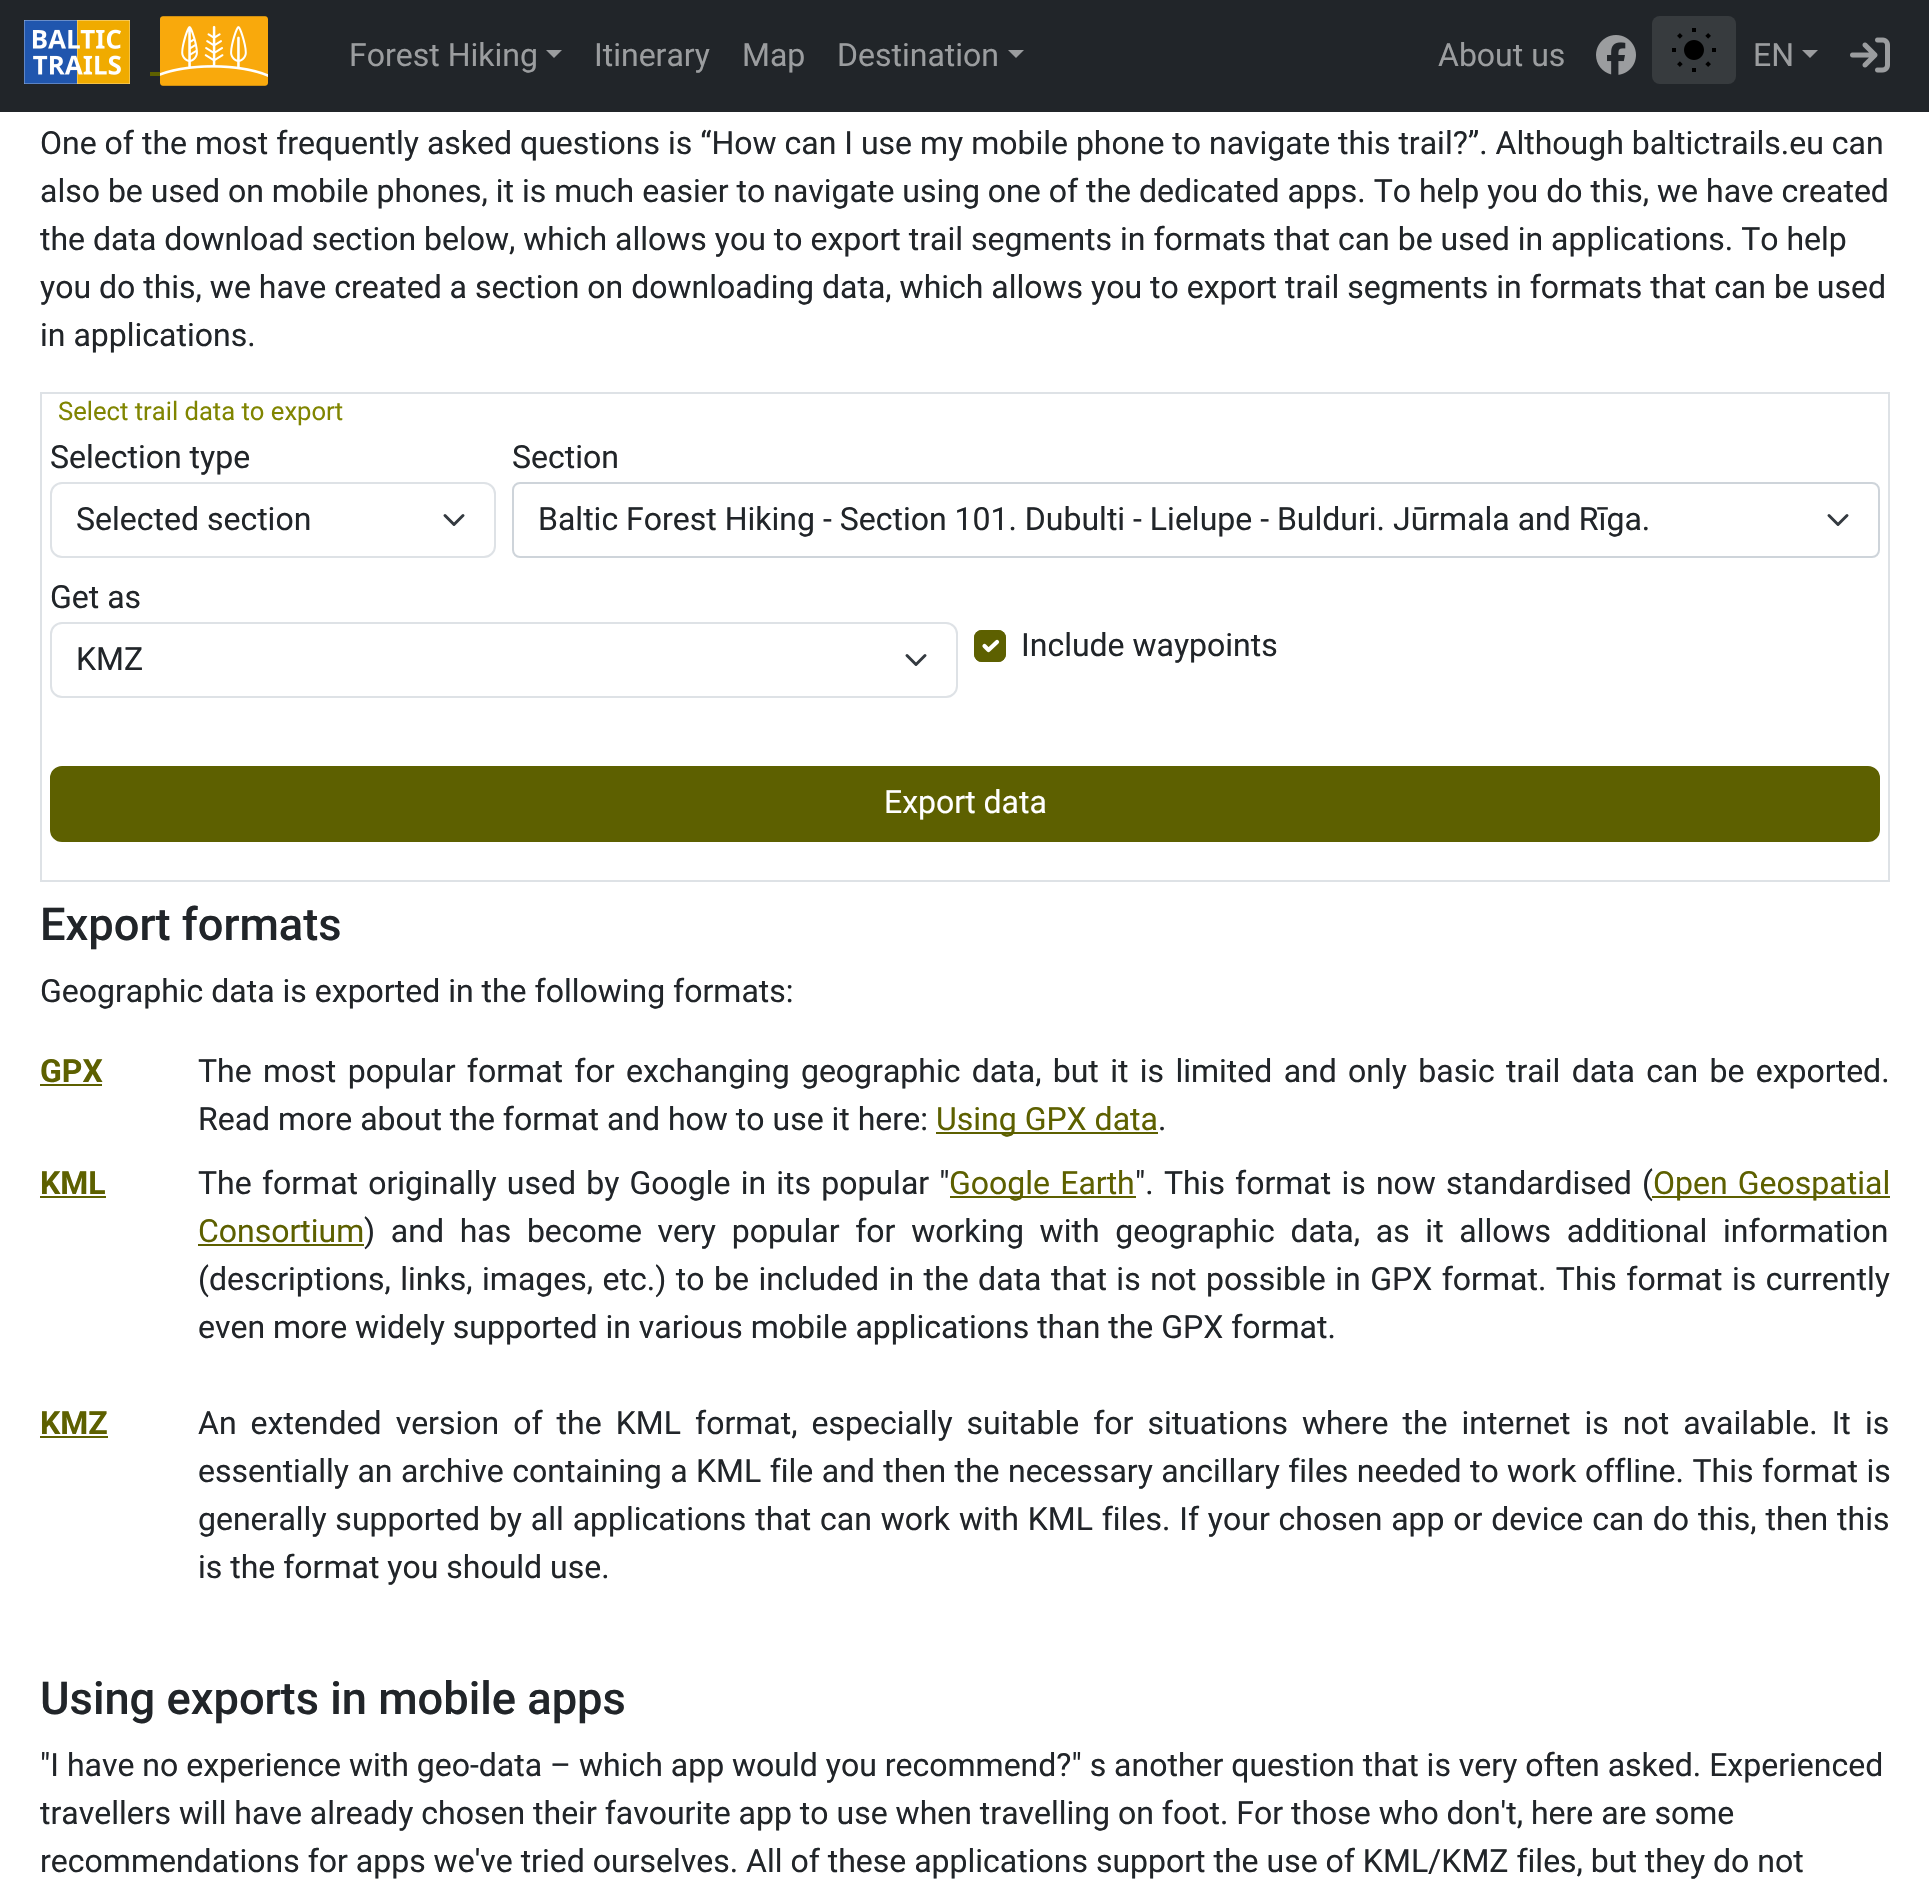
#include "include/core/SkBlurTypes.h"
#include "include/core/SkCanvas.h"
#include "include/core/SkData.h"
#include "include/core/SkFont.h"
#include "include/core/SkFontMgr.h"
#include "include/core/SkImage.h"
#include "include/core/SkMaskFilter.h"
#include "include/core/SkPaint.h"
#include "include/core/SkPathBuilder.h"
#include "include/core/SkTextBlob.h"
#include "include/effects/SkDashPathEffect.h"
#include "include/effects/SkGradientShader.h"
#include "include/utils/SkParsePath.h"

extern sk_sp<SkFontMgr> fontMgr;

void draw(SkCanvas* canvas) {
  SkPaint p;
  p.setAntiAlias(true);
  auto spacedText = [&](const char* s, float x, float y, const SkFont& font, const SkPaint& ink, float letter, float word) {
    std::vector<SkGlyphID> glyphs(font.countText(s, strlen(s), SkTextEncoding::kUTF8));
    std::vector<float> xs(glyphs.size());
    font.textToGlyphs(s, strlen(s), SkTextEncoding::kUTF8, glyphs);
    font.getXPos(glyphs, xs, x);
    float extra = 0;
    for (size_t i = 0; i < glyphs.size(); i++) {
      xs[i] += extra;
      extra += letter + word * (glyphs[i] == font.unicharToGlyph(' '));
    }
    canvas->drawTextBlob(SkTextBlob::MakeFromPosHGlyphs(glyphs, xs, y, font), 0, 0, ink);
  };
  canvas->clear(SK_ColorWHITE);
  p.setColor(SkColorSetRGB(33, 37, 41));
  canvas->drawRect(SkRect::MakeLTRB(0, 0, 1929, 112), p);
  canvas->drawImageRect(SkImages::DeferredFromEncodedData(SkData::MakeFromFileName("images/1.png")), SkRect::MakeLTRB(24, 20, 130, 84), SkSamplingOptions());
  p.setColor(SkColorSetRGB(93, 96, 0));
  canvas->drawRect(SkRect::MakeLTRB(150, 72, 160, 76), p);
  canvas->drawImageRect(SkImages::DeferredFromEncodedData(SkData::MakeFromFileName("images/2.png")), SkRect::MakeLTRB(160, 16, 268, 86), SkSamplingOptions());
  p.setColor(SkColorSetRGB(155, 157, 159));
  canvas->drawPath(SkPathBuilder().moveTo(546, 50).lineTo(562, 50).lineTo(554, 58).close().detach(), p);
  canvas->drawPath(SkPathBuilder().moveTo(1008, 50).lineTo(1024, 50).lineTo(1016, 58).close().detach(), p);
  canvas->drawImageRect(SkImages::DeferredFromEncodedData(SkData::MakeFromFileName("images/3.png")), SkRect::MakeLTRB(1596, 35, 1636, 75), SkSamplingOptions());
  p.setColor(SkColorSetRGB(55, 59, 62));
  canvas->drawRoundRect(SkRect::MakeLTRB(1652, 16, 1736, 84), 8, 8, p);
  canvas->drawImageRect(SkImages::DeferredFromEncodedData(SkData::MakeFromFileName("images/4.png")), SkRect::MakeLTRB(1672, 28, 1716, 72), SkSamplingOptions());
  p.setColor(SkColorSetRGB(155, 157, 159));
  canvas->drawPath(SkPathBuilder().moveTo(1802, 50).lineTo(1818, 50).lineTo(1810, 58).close().detach(), p);
  canvas->drawImageRect(SkImages::DeferredFromEncodedData(SkData::MakeFromFileName("images/5.png")), SkRect::MakeLTRB(1850, 37, 1890, 73), SkSamplingOptions());
  p.setStyle(SkPaint::kStroke_Style);
  p.setStrokeWidth(2);
  p.setColor(SkColorSetRGB(222, 226, 230));
  canvas->drawRect(SkRect::MakeLTRB(41, 393, 1889, 881), p);
  p.setStrokeWidth(3);
  p.setStrokeCap(SkPaint::kRound_Cap);
  p.setStrokeJoin(SkPaint::kRound_Join);
  p.setColor(SkColorSetRGB(52, 58, 64));
  canvas->drawPath(SkPathBuilder().moveTo(445, 515.5f).lineTo(454, 524.5f).lineTo(463, 515.5f).detach(), p);
  p.setStrokeWidth(2);
  p.setStrokeCap(SkPaint::kButt_Cap);
  p.setStrokeJoin(SkPaint::kMiter_Join);
  p.setColor(SkColorSetRGB(222, 226, 230));
  canvas->drawRoundRect(SkRect::MakeLTRB(51, 483, 495, 557), 11, 11, p);
  p.setStrokeWidth(3);
  p.setStrokeCap(SkPaint::kRound_Cap);
  p.setStrokeJoin(SkPaint::kRound_Join);
  p.setColor(SkColorSetRGB(52, 58, 64));
  canvas->drawPath(SkPathBuilder().moveTo(1829, 515.5f).lineTo(1838, 524.5f).lineTo(1847, 515.5f).detach(), p);
  p.setStrokeWidth(2);
  p.setStrokeCap(SkPaint::kButt_Cap);
  p.setStrokeJoin(SkPaint::kMiter_Join);
  p.setColor(SkColorSetRGB(206, 212, 218));
  canvas->drawRoundRect(SkRect::MakeLTRB(513, 483, 1879, 557), 7, 7, p);
  p.setStrokeWidth(3);
  p.setStrokeCap(SkPaint::kRound_Cap);
  p.setStrokeJoin(SkPaint::kRound_Join);
  p.setColor(SkColorSetRGB(52, 58, 64));
  canvas->drawPath(SkPathBuilder().moveTo(907, 655.5f).lineTo(916, 664.5f).lineTo(925, 655.5f).detach(), p);
  p.setStrokeWidth(2);
  p.setStrokeCap(SkPaint::kButt_Cap);
  p.setStrokeJoin(SkPaint::kMiter_Join);
  p.setColor(SkColorSetRGB(222, 226, 230));
  canvas->drawRoundRect(SkRect::MakeLTRB(51, 623, 957, 697), 11, 11, p);
  p.setStyle(SkPaint::kFill_Style);
  p.setColor(SkColorSetRGB(93, 96, 0));
  canvas->drawRoundRect(SkRect::MakeLTRB(974, 630, 1006, 662), 8, 8, p);
  p.setStyle(SkPaint::kStroke_Style);
  p.setStrokeWidth(4.2f);
  p.setStrokeCap(SkPaint::kRound_Cap);
  p.setStrokeJoin(SkPaint::kRound_Join);
  p.setColor(SK_ColorWHITE);
  canvas->drawPath(SkPathBuilder().moveTo(984.5f, 646).lineTo(988.5f, 650).lineTo(997, 642).detach(), p);
  p.setStrokeWidth(2);
  p.setStrokeCap(SkPaint::kButt_Cap);
  p.setStrokeJoin(SkPaint::kMiter_Join);
  p.setColor(SkColorSetRGB(93, 96, 0));
  canvas->drawRoundRect(SkRect::MakeLTRB(975, 631, 1005, 661), 7, 7, p);
  p.setStyle(SkPaint::kFill_Style);
  canvas->drawRoundRect(SkRect::MakeLTRB(51, 767, 1879, 841), 11, 11, p);
  p.setStyle(SkPaint::kStroke_Style);
  canvas->drawRoundRect(SkRect::MakeLTRB(51, 767, 1879, 841), 11, 11, p);
  p.setStyle(SkPaint::kFill_Style);
  canvas->drawRect(SkRect::MakeLTRB(40, 1084, 102, 1086), p);
  canvas->drawRect(SkRect::MakeLTRB(936, 1132, 1158, 1134), p);
  canvas->drawRect(SkRect::MakeLTRB(40, 1196, 106, 1198), p);
  canvas->drawRect(SkRect::MakeLTRB(950, 1196, 1136, 1198), p);
  canvas->drawRect(SkRect::MakeLTRB(198, 1244, 364, 1246), p);
  canvas->drawRect(SkRect::MakeLTRB(40, 1436, 108, 1438), p);
  SkFont font1(fontMgr->matchFamilyStyle("Roboto", SkFontStyle::Normal()), 32);
  font1.setSubpixel(true);
  p.setColor(SkColorSetRGB(155, 157, 159));
  canvas->drawString("Forest Hiking", 349, 66, font1, p);
  canvas->drawString("Itinerary", 594, 66, font1, p);
  canvas->drawString("Map", 742, 66, font1, p);
  canvas->drawString("Destination", 837, 66, font1, p);
  canvas->drawString("About us", 1438, 66, font1, p);
  canvas->drawString("EN", 1753, 66, font1, p);
  p.setColor(SkColorSetRGB(33, 37, 41));
  canvas->drawString("One of the most frequently asked questions is “How can I use my mobile phone to navigate this trail?”. Although baltictrails.eu can", 40, 154, font1, p);
  canvas->drawString("also be used on mobile phones, it is much easier to navigate using one of the dedicated apps. To help you do this, we have created", 40, 202, font1, p);
  canvas->drawString("the data download section below, which allows you to export trail segments in formats that can be used in applications. To help", 40, 250, font1, p);
  canvas->drawString("you do this, we have created a section on downloading data, which allows you to export trail segments in formats that can be used", 40, 298, font1, p);
  canvas->drawString("in applications.", 40, 346, font1, p);
  SkFont font2(fontMgr->matchFamilyStyle("Roboto", SkFontStyle::Normal()), 25.6f);
  font2.setSubpixel(true);
  p.setColor(SkColorSetRGB(128, 133, 0));
  canvas->drawString("Select trail data to export", 58, 420, font2, p);
  p.setColor(SkColorSetRGB(33, 37, 41));
  canvas->drawString("Selection type", 50, 468, font1, p);
  canvas->drawString("Selected section", 76, 530, font1, p);
  canvas->drawString("Section", 512, 468, font1, p);
  canvas->drawString("Baltic Forest Hiking - Section 101. Dubulti - Lielupe - Bulduri. Jūrmala and Rīga.", 538, 530, font1, p);
  canvas->drawString("Get as", 50, 608, font1, p);
  canvas->drawString("KMZ", 76, 670, font1, p);
  canvas->drawString("Include waypoints", 1021, 656, font1, p);
  p.setColor(SK_ColorWHITE);
  canvas->drawString("Export data", 884, 813, font1, p);
  SkFont font3(fontMgr->matchFamilyStyle("Roboto", SkFontStyle(500, SkFontStyle::kNormal_Width, SkFontStyle::kUpright_Slant)), 45.25f);
  font3.setSubpixel(true);
  p.setColor(SkColorSetRGB(33, 37, 41));
  canvas->drawString("Export formats", 40, 940, font3, p);
  canvas->drawString("Geographic data is exported in the following formats:", 40, 1002, font1, p);
  SkFont font4(fontMgr->matchFamilyStyle("Roboto", SkFontStyle::Bold()), 32);
  font4.setSubpixel(true);
  p.setColor(SkColorSetRGB(93, 96, 0));
  canvas->drawString("GPX", 40, 1082, font4, p);
  p.setColor(SkColorSetRGB(33, 37, 41));
  spacedText("The most popular format for exchanging geographic data, but it is limited and only basic trail data can be exported.", 198, 1082, font1, p, 0, 3.4f);
  canvas->drawString("Read more about the format and how to use it here:", 198, 1130, font1, p);
  p.setColor(SkColorSetRGB(93, 96, 0));
  canvas->drawString("Using GPX data", 936, 1130, font1, p);
  p.setColor(SkColorSetRGB(33, 37, 41));
  canvas->drawString(".", 1158, 1130, font1, p);
  p.setColor(SkColorSetRGB(93, 96, 0));
  canvas->drawString("KML", 40, 1194, font4, p);
  p.setColor(SkColorSetRGB(33, 37, 41));
  spacedText("The format originally used by Google in its popular \"", 198, 1194, font1, p, 0, 2.25f);
  p.setColor(SkColorSetRGB(93, 96, 0));
  spacedText("Google Earth", 949, 1194, font1, p, 0, 2.25f);
  p.setColor(SkColorSetRGB(33, 37, 41));
  spacedText("\". This format is now standardised (", 1135, 1194, font1, p, 0, 2.25f);
  p.setColor(SkColorSetRGB(93, 96, 0));
  canvas->drawRect(SkRect::MakeLTRB(1652, 1196, 1890, 1198), p);
  spacedText("Open Geospatial", 1653, 1194, font1, p, 0, 2.25f);
  canvas->drawString("Consortium", 198, 1242, font1, p);
  p.setColor(SkColorSetRGB(33, 37, 41));
  spacedText(") and has become very popular for working with geographic data, as it allows additional information", 364, 1242, font1, p, 0, 7.75f);
  spacedText("(descriptions, links, images, etc.) to be included in the data that is not possible in GPX format. This format is currently", 198, 1290, font1, p, 0, 1.55f);
  canvas->drawString("even more widely supported in various mobile applications than the GPX format.", 198, 1338, font1, p);
  p.setColor(SkColorSetRGB(93, 96, 0));
  canvas->drawString("KMZ", 40, 1434, font4, p);
  p.setColor(SkColorSetRGB(33, 37, 41));
  spacedText("An extended version of the KML format, especially suitable for situations where the internet is not available. It is", 198, 1434, font1, p, 0, 6.1f);
  spacedText("essentially an archive containing a KML file and then the necessary ancillary files needed to work offline. This format is", 198, 1482, font1, p, 0, 0.5f);
  spacedText("generally supported by all applications that can work with KML files. If your chosen app or device can do this, then this", 198, 1530, font1, p, 0, 0.9f);
  canvas->drawString("is the format you should use.", 198, 1578, font1, p);
  canvas->drawString("Using exports in mobile apps", 40, 1714, font3, p);
  canvas->drawString("\"I have no experience with geo-data – which app would you recommend?\" s another question that is very often asked. Experienced", 40, 1776, font1, p);
  canvas->drawString("travellers will have already chosen their favourite app to use when travelling on foot. For those who don't, here are some", 40, 1824, font1, p);
  canvas->drawString("recommendations for apps we've tried ourselves. All of these applications support the use of KML/KMZ files, but they do not", 40, 1872, font1, p);
}
